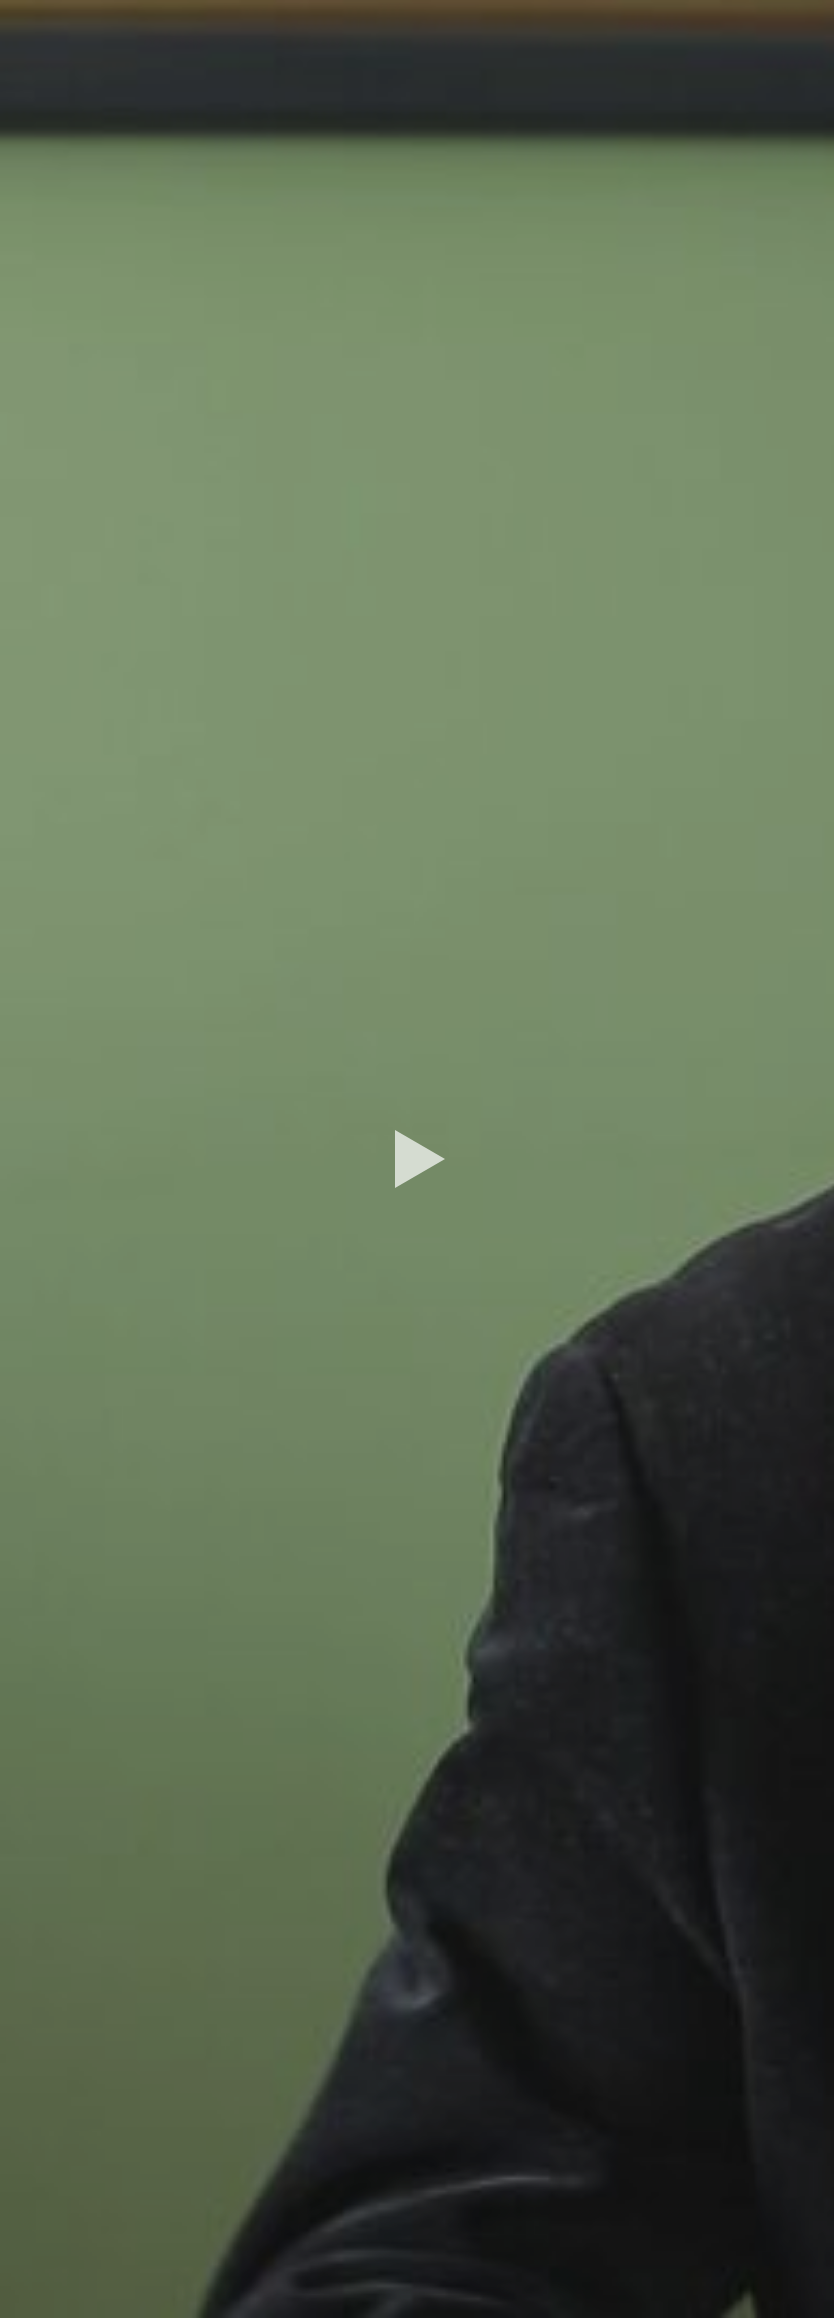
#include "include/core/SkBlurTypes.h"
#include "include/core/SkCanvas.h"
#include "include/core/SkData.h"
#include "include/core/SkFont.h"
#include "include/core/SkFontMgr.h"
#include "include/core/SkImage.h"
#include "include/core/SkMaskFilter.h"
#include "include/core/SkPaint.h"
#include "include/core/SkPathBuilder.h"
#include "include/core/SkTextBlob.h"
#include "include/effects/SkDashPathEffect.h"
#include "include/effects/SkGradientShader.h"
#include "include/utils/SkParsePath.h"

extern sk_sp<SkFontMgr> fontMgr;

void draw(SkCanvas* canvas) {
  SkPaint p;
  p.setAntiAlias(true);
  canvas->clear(SK_ColorWHITE);
  canvas->drawImageRect(SkImages::DeferredFromEncodedData(SkData::MakeFromFileName("images/1.png")), SkRect::MakeLTRB(0, 0, 834, 2318), SkSamplingOptions());
  p.setColor(SkColorSetRGB(213, 220, 209));
  canvas->drawPath(SkPathBuilder().moveTo(395, 1188).lineTo(445, 1159).lineTo(395, 1130).close().detach(), p);
}
